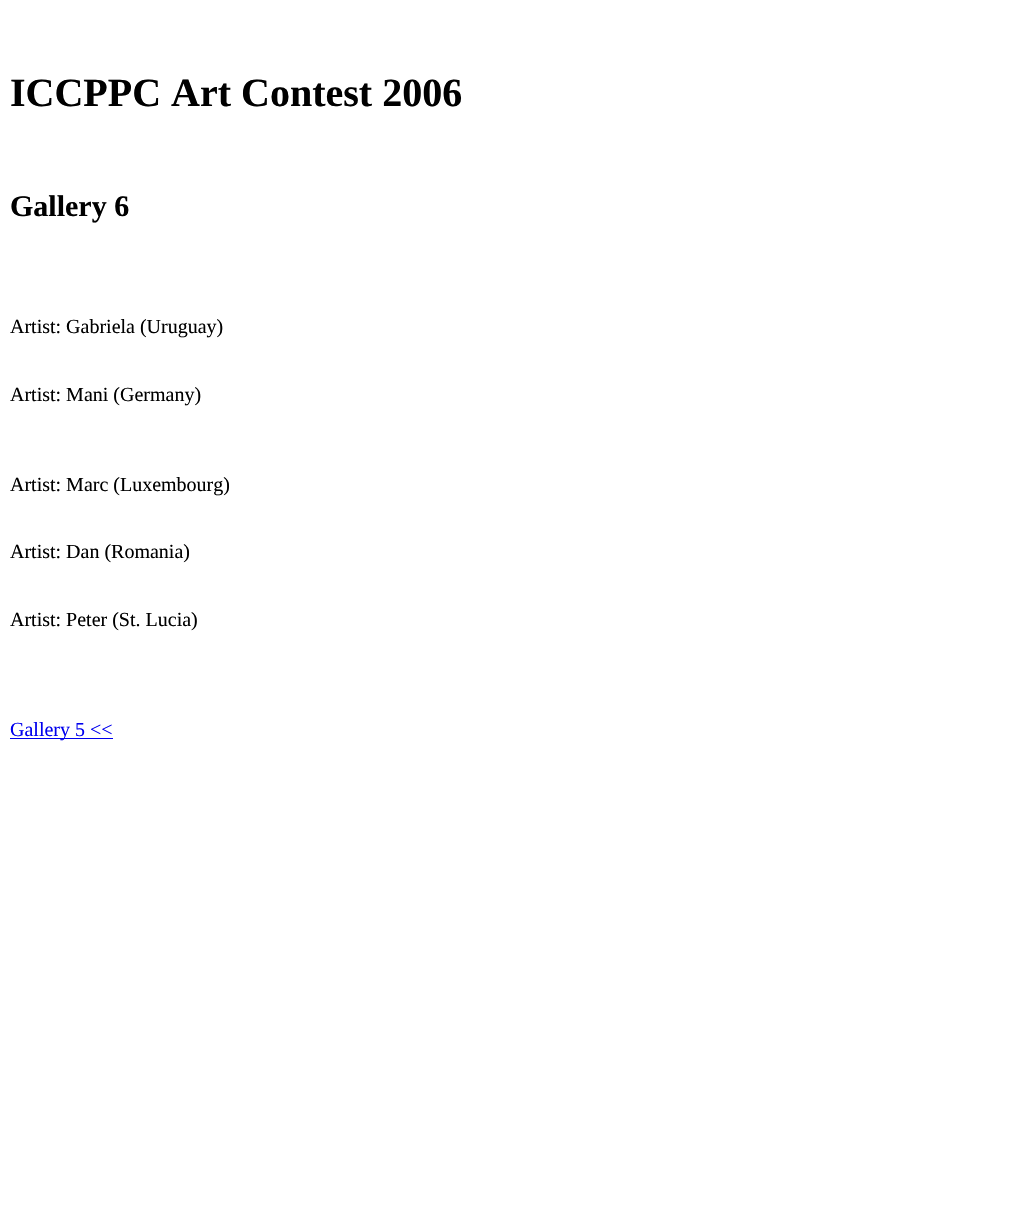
#include "include/core/SkBlurTypes.h"
#include "include/core/SkCanvas.h"
#include "include/core/SkData.h"
#include "include/core/SkFont.h"
#include "include/core/SkFontMgr.h"
#include "include/core/SkImage.h"
#include "include/core/SkMaskFilter.h"
#include "include/core/SkPaint.h"
#include "include/core/SkPathBuilder.h"
#include "include/core/SkTextBlob.h"
#include "include/effects/SkDashPathEffect.h"
#include "include/effects/SkGradientShader.h"
#include "include/utils/SkParsePath.h"

extern sk_sp<SkFontMgr> fontMgr;

void draw(SkCanvas* canvas) {
  SkPaint p;
  p.setAntiAlias(true);
  canvas->clear(SK_ColorWHITE);
  p.setColor(SkColorSetRGB(0, 0, 238));
  canvas->drawRect(SkRect::MakeLTRB(10, 738, 113, 739), p);
  SkFont font1(fontMgr->matchFamilyStyle("Liberation Serif", SkFontStyle::Bold()), 40);
  font1.setSubpixel(true);
  p.setColor(SK_ColorBLACK);
  canvas->drawString("ICCPPC Art Contest 2006", 10, 106, font1, p);
  SkFont font2(fontMgr->matchFamilyStyle("Liberation Serif", SkFontStyle::Bold()), 30);
  font2.setSubpixel(true);
  canvas->drawString("Gallery 6", 10, 216, font2, p);
  SkFont font3(fontMgr->matchFamilyStyle("Liberation Serif", SkFontStyle::Normal()), 20);
  font3.setSubpixel(true);
  canvas->drawString("Artist: Gabriela (Uruguay)", 10, 333, font3, p);
  canvas->drawString("Artist: Mani (Germany)", 10, 401, font3, p);
  canvas->drawString("Artist: Marc (Luxembourg)", 10, 491, font3, p);
  canvas->drawString("Artist: Dan (Romania)", 10, 558, font3, p);
  canvas->drawString("Artist: Peter (St. Lucia)", 10, 626, font3, p);
  p.setColor(SkColorSetRGB(0, 0, 238));
  canvas->drawString("Gallery 5 <<", 10, 736, font3, p);
}
